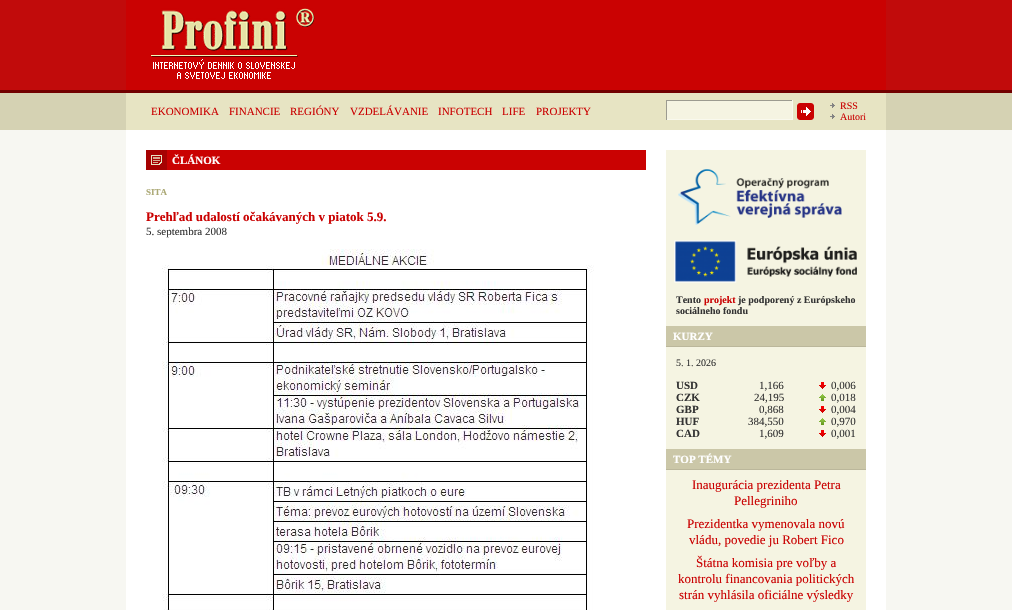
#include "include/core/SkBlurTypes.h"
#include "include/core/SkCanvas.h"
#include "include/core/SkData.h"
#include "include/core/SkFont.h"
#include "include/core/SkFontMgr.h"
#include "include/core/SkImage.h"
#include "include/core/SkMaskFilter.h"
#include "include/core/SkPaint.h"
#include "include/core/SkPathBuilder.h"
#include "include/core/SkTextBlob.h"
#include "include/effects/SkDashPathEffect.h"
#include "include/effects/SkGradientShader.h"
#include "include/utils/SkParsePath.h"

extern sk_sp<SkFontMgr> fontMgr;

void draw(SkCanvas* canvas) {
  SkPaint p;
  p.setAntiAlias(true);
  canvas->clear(SkColorSetRGB(247, 247, 242));
  canvas->drawImageRect(SkImages::DeferredFromEncodedData(SkData::MakeFromFileName("images/1.png")), SkRect::MakeLTRB(0, 0, 1012, 130), SkSamplingOptions());
  p.setColor(SK_ColorWHITE);
  canvas->drawRect(SkRect::MakeLTRB(126, 130, 886, 610), p);
  p.setColor(SkColorSetRGB(202, 2, 2));
  canvas->drawRect(SkRect::MakeLTRB(126, 0, 886, 90), p);
  canvas->drawImageRect(SkImages::DeferredFromEncodedData(SkData::MakeFromFileName("images/2.png")), SkRect::MakeLTRB(151, 8, 315, 79), SkSamplingOptions());
  p.setColor(SkColorSetRGB(231, 228, 195));
  canvas->drawRect(SkRect::MakeLTRB(126, 93, 886, 130), p);
  p.setColor(SkColorSetRGB(245, 244, 226));
  canvas->drawRect(SkRect::MakeLTRB(667, 101, 792, 119), p);
  p.setColor(SkColorSetRGB(156, 155, 144));
  canvas->drawRect(SkRect::MakeLTRB(666, 100, 793, 101), p);
  p.setColor(SkColorSetRGB(249, 249, 238));
  canvas->drawRect(SkRect::MakeLTRB(792, 100, 793, 120), p);
  canvas->drawRect(SkRect::MakeLTRB(666, 119, 793, 120), p);
  p.setColor(SkColorSetRGB(156, 155, 144));
  canvas->drawRect(SkRect::MakeLTRB(666, 100, 667, 120), p);
  canvas->drawImageRect(SkImages::DeferredFromEncodedData(SkData::MakeFromFileName("images/3.png")), SkRect::MakeLTRB(797, 103, 814, 120), SkSamplingOptions());
  canvas->drawImageRect(SkImages::DeferredFromEncodedData(SkData::MakeFromFileName("images/4.png")), SkRect::MakeLTRB(830, 103, 835, 108), SkSamplingOptions());
  canvas->drawImageRect(SkImages::DeferredFromEncodedData(SkData::MakeFromFileName("images/4.png")), SkRect::MakeLTRB(830, 114, 835, 119), SkSamplingOptions());
  p.setColor(SkColorSetRGB(245, 244, 226));
  canvas->drawRect(SkRect::MakeLTRB(666, 150, 866, 610), p);
  p.setColor(SkColorSetRGB(202, 2, 2));
  canvas->drawRect(SkRect::MakeLTRB(167, 150, 646, 170), p);
  canvas->drawImageRect(SkImages::DeferredFromEncodedData(SkData::MakeFromFileName("images/5.png")), SkRect::MakeLTRB(146, 150, 167, 170), SkSamplingOptions());
  canvas->drawImageRect(SkImages::DeferredFromEncodedData(SkData::MakeFromFileName("images/6.png")), SkRect::MakeLTRB(162, 249, 594, 610), SkSamplingOptions());
  canvas->drawImageRect(SkImages::DeferredFromEncodedData(SkData::MakeFromFileName("images/7.png")), SkRect::MakeLTRB(678, 169, 842, 225), SkSamplingOptions());
  canvas->drawImageRect(SkImages::DeferredFromEncodedData(SkData::MakeFromFileName("images/8.png")), SkRect::MakeLTRB(674, 240, 857, 283), SkSamplingOptions());
  p.setColor(SkColorSetRGB(203, 199, 168));
  canvas->drawRect(SkRect::MakeLTRB(666, 326, 866, 346), p);
  p.setColor(SkColorSetRGB(187, 183, 155));
  canvas->drawRect(SkRect::MakeLTRB(666, 346, 866, 347), p);
  canvas->drawImageRect(SkImages::DeferredFromEncodedData(SkData::MakeFromFileName("images/9.png")), SkRect::MakeLTRB(819, 382, 826, 389), SkSamplingOptions());
  canvas->drawImageRect(SkImages::DeferredFromEncodedData(SkData::MakeFromFileName("images/10.png")), SkRect::MakeLTRB(819, 394, 826, 401), SkSamplingOptions());
  canvas->drawImageRect(SkImages::DeferredFromEncodedData(SkData::MakeFromFileName("images/9.png")), SkRect::MakeLTRB(819, 406, 826, 413), SkSamplingOptions());
  canvas->drawImageRect(SkImages::DeferredFromEncodedData(SkData::MakeFromFileName("images/10.png")), SkRect::MakeLTRB(819, 418, 826, 425), SkSamplingOptions());
  canvas->drawImageRect(SkImages::DeferredFromEncodedData(SkData::MakeFromFileName("images/9.png")), SkRect::MakeLTRB(819, 430, 826, 437), SkSamplingOptions());
  p.setColor(SkColorSetRGB(203, 199, 168));
  canvas->drawRect(SkRect::MakeLTRB(666, 449, 866, 469), p);
  p.setColor(SkColorSetRGB(187, 183, 155));
  canvas->drawRect(SkRect::MakeLTRB(666, 469, 866, 470), p);
  SkFont font1(fontMgr->matchFamilyStyle("Liberation Serif", SkFontStyle::Normal()), 11);
  font1.setSubpixel(true);
  p.setColor(SkColorSetRGB(202, 2, 2));
  canvas->drawString("EKONOMIKA", 151, 115, font1, p);
  canvas->drawString("FINANCIE", 229, 115, font1, p);
  canvas->drawString("REGIÓNY", 290, 115, font1, p);
  canvas->drawString("VZDELÁVANIE", 350, 115, font1, p);
  canvas->drawString("INFOTECH", 438, 115, font1, p);
  canvas->drawString("LIFE", 502, 115, font1, p);
  canvas->drawString("PROJEKTY", 536, 115, font1, p);
  SkFont font2(fontMgr->matchFamilyStyle("Liberation Serif", SkFontStyle::Normal()), 10);
  font2.setSubpixel(true);
  canvas->drawString("RSS", 840, 109, font2, p);
  canvas->drawString("Autori", 840, 120, font2, p);
  SkFont font3(fontMgr->matchFamilyStyle("Liberation Serif", SkFontStyle::Bold()), 11);
  font3.setSubpixel(true);
  p.setColor(SK_ColorWHITE);
  canvas->drawString("ČLÁNOK", 172, 164, font3, p);
  SkFont font4(fontMgr->matchFamilyStyle("Liberation Serif", SkFontStyle::Bold()), 9);
  font4.setSubpixel(true);
  p.setColor(SkColorSetRGB(172, 169, 118));
  canvas->drawString("SITA", 146, 195, font4, p);
  SkFont font5(fontMgr->matchFamilyStyle("Liberation Serif", SkFontStyle::Bold()), 13);
  font5.setSubpixel(true);
  p.setColor(SkColorSetRGB(202, 2, 2));
  canvas->drawString("Prehľad udalostí očakávaných v piatok 5.9.", 146, 221, font5, p);
  p.setColor(SkColorSetRGB(51, 51, 51));
  canvas->drawString("5. septembra 2008", 146, 235, font1, p);
  SkFont font6(fontMgr->matchFamilyStyle("Liberation Serif", SkFontStyle::Bold()), 10);
  font6.setSubpixel(true);
  canvas->drawString("Tento", 676, 303, font6, p);
  p.setColor(SkColorSetRGB(202, 2, 2));
  canvas->drawString("projekt", 704, 303, font6, p);
  p.setColor(SkColorSetRGB(51, 51, 51));
  canvas->drawString("je podporený z Európskeho", 738, 303, font6, p);
  canvas->drawString("sociálneho fondu", 676, 314, font6, p);
  p.setColor(SK_ColorWHITE);
  canvas->drawString("KURZY", 673, 340, font3, p);
  p.setColor(SkColorSetRGB(51, 51, 51));
  canvas->drawString("5. 1. 2026", 676, 366, font2, p);
  canvas->drawString("USD", 676, 389, font3, p);
  canvas->drawString("1,166", 759, 389, font1, p);
  canvas->drawString("0,006", 831, 389, font1, p);
  canvas->drawString("CZK", 676, 401, font3, p);
  canvas->drawString("24,195", 754, 401, font1, p);
  canvas->drawString("0,018", 831, 401, font1, p);
  canvas->drawString("GBP", 676, 413, font3, p);
  canvas->drawString("0,868", 759, 413, font1, p);
  canvas->drawString("0,004", 831, 413, font1, p);
  canvas->drawString("HUF", 676, 425, font3, p);
  canvas->drawString("384,550", 748, 425, font1, p);
  canvas->drawString("0,970", 831, 425, font1, p);
  canvas->drawString("CAD", 676, 437, font3, p);
  canvas->drawString("1,609", 759, 437, font1, p);
  canvas->drawString("0,001", 831, 437, font1, p);
  p.setColor(SK_ColorWHITE);
  canvas->drawString("TOP TÉMY", 673, 463, font3, p);
  SkFont font7(fontMgr->matchFamilyStyle("Liberation Serif", SkFontStyle::Normal()), 13);
  font7.setSubpixel(true);
  p.setColor(SkColorSetRGB(202, 2, 2));
  canvas->drawString("Inaugurácia prezidenta Petra", 692, 489, font7, p);
  canvas->drawString("Pellegriniho", 734, 505, font7, p);
  canvas->drawString("Prezidentka vymenovala novú", 687, 528, font7, p);
  canvas->drawString("vládu, povedie ju Robert Fico", 689, 544, font7, p);
  canvas->drawString("Štátna komisia pre voľby a", 696, 567, font7, p);
  canvas->drawString("kontrolu financovania politických", 678, 583, font7, p);
  canvas->drawString("strán vyhlásila oficiálne výsledky", 679, 599, font7, p);
}
